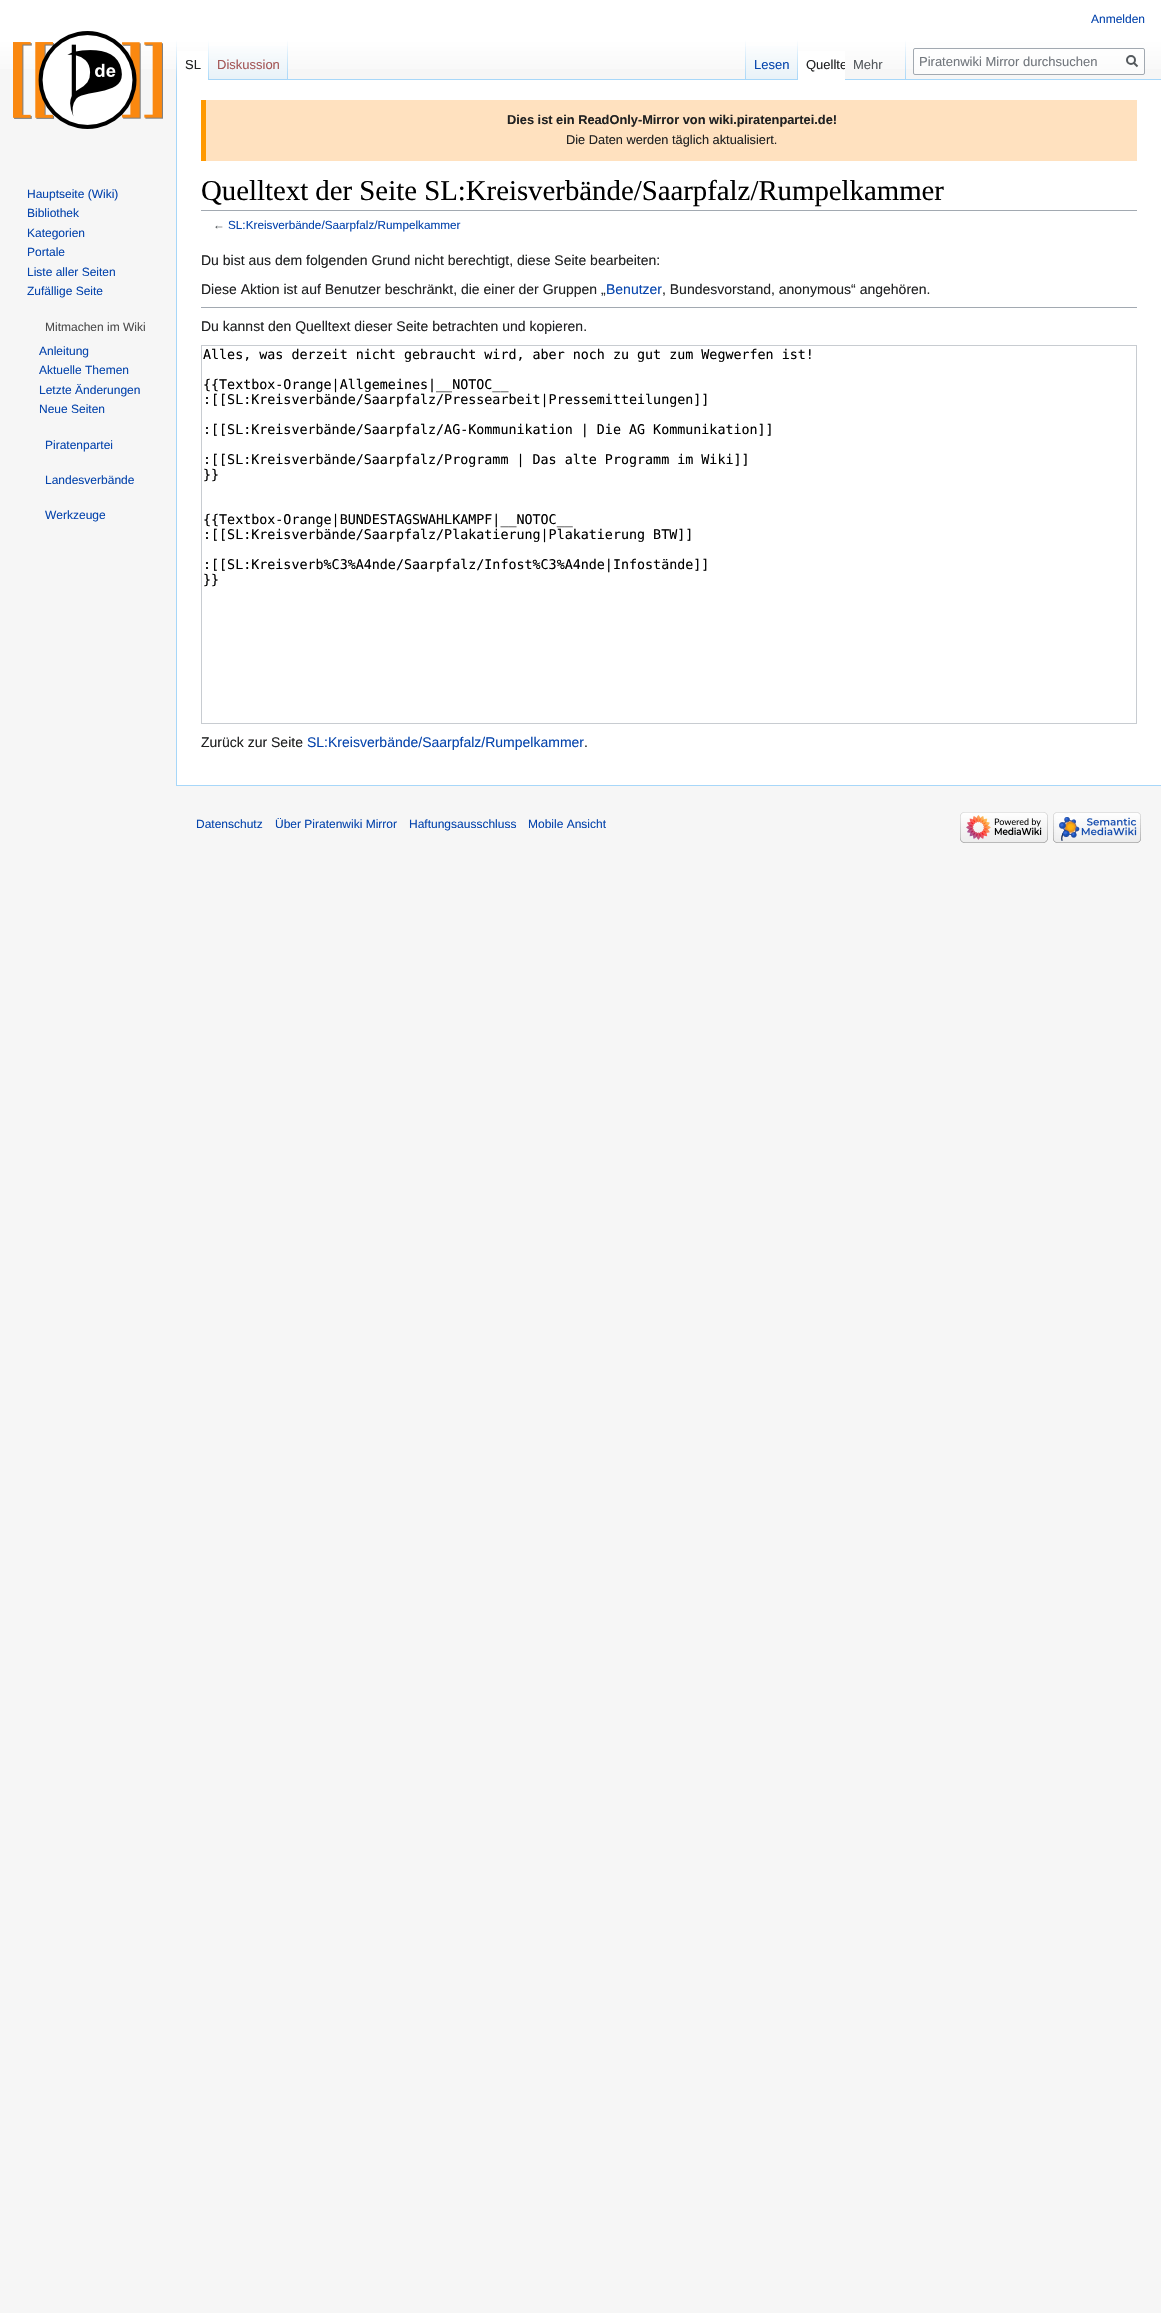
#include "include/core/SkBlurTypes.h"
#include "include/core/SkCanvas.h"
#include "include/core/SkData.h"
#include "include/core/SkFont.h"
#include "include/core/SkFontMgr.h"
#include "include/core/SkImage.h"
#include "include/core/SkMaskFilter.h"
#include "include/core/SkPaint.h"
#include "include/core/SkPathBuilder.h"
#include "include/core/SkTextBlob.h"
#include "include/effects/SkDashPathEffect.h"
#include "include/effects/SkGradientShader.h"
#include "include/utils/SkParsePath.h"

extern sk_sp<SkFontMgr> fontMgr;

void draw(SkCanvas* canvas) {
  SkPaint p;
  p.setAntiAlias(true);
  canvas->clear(SkColorSetRGB(246, 246, 246));
  {
    const SkColor colors[] = {SK_ColorWHITE, SkColorSetRGB(246, 246, 246)};
    const float stops[] = {0.5f, 1};
    const SkPoint ends[] = {{581, 0}, {581, 80}};
    p.setShader(SkGradientShader::MakeLinear(ends, colors, stops, 2, SkTileMode::kClamp));
    p.setAlpha(255);
  }
  canvas->drawRect(SkRect::MakeLTRB(0, 0, 1161, 69), p);
  p.setShader(nullptr);
  p.setColor(SkColorSetRGB(167, 215, 249));
  canvas->drawRect(SkRect::MakeLTRB(176, 785, 1161, 786), p);
  canvas->drawRect(SkRect::MakeLTRB(176, 79, 177, 786), p);
  {
    const SkColor colors[] = {SkColorSetARGB(0, 167, 215, 249), SkColorSetRGB(167, 215, 249)};
    const float stops[] = {0, 1};
    const SkPoint ends[] = {{177, 40}, {177, 80}};
    p.setShader(SkGradientShader::MakeLinear(ends, colors, stops, 2, SkTileMode::kClamp));
    p.setAlpha(255);
  }
  canvas->drawRect(SkRect::MakeLTRB(176, 40, 177, 80), p);
  p.setShader(nullptr);
  p.setColor(SK_ColorWHITE);
  canvas->drawRect(SkRect::MakeLTRB(177, 51, 208, 80), p);
  {
    const SkColor colors[] = {SK_ColorWHITE, SkColorSetRGB(167, 215, 249)};
    const float stops[] = {0, 1};
    const SkPoint ends[] = {{209, 40}, {209, 80}};
    p.setShader(SkGradientShader::MakeLinear(ends, colors, stops, 2, SkTileMode::kClamp));
    p.setAlpha(255);
  }
  canvas->drawRect(SkRect::MakeLTRB(208, 40, 209, 80), p);
  {
    const SkColor colors[] = {SkColorSetRGB(119, 193, 246), SkColorSetRGB(232, 242, 248), SK_ColorWHITE};
    const float stops[] = {0, 0.03f, 1};
    const SkPoint ends[] = {{249, 80}, {249, 40}};
    p.setShader(SkGradientShader::MakeLinear(ends, colors, stops, 3, SkTileMode::kClamp));
    p.setAlpha(255);
  }
  canvas->drawRect(SkRect::MakeLTRB(209, 46, 288, 80), p);
  {
    const SkColor colors[] = {SkColorSetARGB(0, 167, 215, 249), SkColorSetRGB(167, 215, 249)};
    const float stops[] = {0, 1};
    const SkPoint ends[] = {{288, 40}, {288, 80}};
    p.setShader(SkGradientShader::MakeLinear(ends, colors, stops, 2, SkTileMode::kClamp));
    p.setAlpha(255);
  }
  canvas->drawRect(SkRect::MakeLTRB(287, 40, 288, 80), p);
  p.setShader(nullptr);
  p.setColor(SkColorSetRGB(167, 215, 249));
  canvas->drawRect(SkRect::MakeLTRB(288, 79, 1161, 80), p);
  {
    const SkColor colors[] = {SkColorSetARGB(0, 167, 215, 249), SkColorSetRGB(167, 215, 249)};
    const float stops[] = {0, 1};
    const SkPoint ends[] = {{746, 40}, {746, 80}};
    p.setShader(SkGradientShader::MakeLinear(ends, colors, stops, 2, SkTileMode::kClamp));
    p.setAlpha(255);
  }
  canvas->drawRect(SkRect::MakeLTRB(745, 40, 746, 80), p);
  {
    const SkColor colors[] = {SkColorSetRGB(119, 193, 246), SkColorSetRGB(232, 242, 248), SK_ColorWHITE};
    const float stops[] = {0, 0.03f, 1};
    const SkPoint ends[] = {{772, 80}, {772, 40}};
    p.setShader(SkGradientShader::MakeLinear(ends, colors, stops, 3, SkTileMode::kClamp));
    p.setAlpha(255);
  }
  canvas->drawRect(SkRect::MakeLTRB(746, 46, 798, 79), p);
  {
    const SkColor colors[] = {SkColorSetARGB(0, 167, 215, 249), SkColorSetRGB(167, 215, 249)};
    const float stops[] = {0, 1};
    const SkPoint ends[] = {{798, 40}, {798, 80}};
    p.setShader(SkGradientShader::MakeLinear(ends, colors, stops, 2, SkTileMode::kClamp));
    p.setAlpha(255);
  }
  canvas->drawRect(SkRect::MakeLTRB(797, 40, 798, 80), p);
  p.setShader(nullptr);
  p.setColor(SK_ColorWHITE);
  canvas->drawRect(SkRect::MakeLTRB(798, 51, 845, 80), p);
  {
    const SkColor colors[] = {SkColorSetARGB(0, 167, 215, 249), SkColorSetRGB(167, 215, 249)};
    const float stops[] = {0, 1};
    const SkPoint ends[] = {{906, 40}, {906, 80}};
    p.setShader(SkGradientShader::MakeLinear(ends, colors, stops, 2, SkTileMode::kClamp));
    p.setAlpha(255);
  }
  canvas->drawRect(SkRect::MakeLTRB(905, 40, 906, 80), p);
  p.setShader(nullptr);
  p.setColor(SkColorSetARGB(128, 255, 255, 255));
  canvas->drawRoundRect(SkRect::MakeLTRB(913.5f, 48.5f, 1144.5f, 74.5f), 1.5f, 1.5f, p);
  p.setStyle(SkPaint::kStroke_Style);
  p.setStrokeWidth(1);
  p.setColor(SkColorSetRGB(162, 169, 177));
  canvas->drawRoundRect(SkRect::MakeLTRB(913.5f, 48.5f, 1144.5f, 74.5f), 1.5f, 1.5f, p);
  p.setStrokeWidth(2);
  p.setColor(SkColorSetRGB(84, 89, 93));
  canvas->drawPath(SkPathBuilder().moveTo(1137.5f, 66.5f).lineTo(1133.5f, 62.5f).detach(), p);
  canvas->drawCircle(1131, 60, 4, p);
  canvas->drawImageRect(SkImages::DeferredFromEncodedData(SkData::MakeFromFileName("images/1.png")), SkRect::MakeLTRB(13, 31, 163, 129), SkSamplingOptions());
  p.setStyle(SkPaint::kFill_Style);
  p.setColor(SkColorSetRGB(121, 121, 121));
  canvas->drawPath(SkPathBuilder().moveTo(92.5f, 444).lineTo(93, 444.5f).lineTo(92.5f, 445).close().detach(), p);
  canvas->drawPath(SkPathBuilder().moveTo(92.5f, 479).lineTo(93, 479.5f).lineTo(92.5f, 480).close().detach(), p);
  canvas->drawPath(SkPathBuilder().moveTo(92.5f, 514).lineTo(93, 514.5f).lineTo(92.5f, 515).close().detach(), p);
  p.setColor(SK_ColorWHITE);
  canvas->drawRect(SkRect::MakeLTRB(177, 80, 1161, 785), p);
  p.setColor(SkColorSetRGB(255, 225, 191));
  canvas->drawRect(SkRect::MakeLTRB(206, 100, 1137, 161), p);
  p.setColor(SkColorSetRGB(255, 153, 0));
  canvas->drawRect(SkRect::MakeLTRB(201, 100, 206, 161), p);
  p.setColor(SkColorSetRGB(162, 169, 177));
  canvas->drawRect(SkRect::MakeLTRB(201, 210, 1137, 211), p);
  canvas->drawRect(SkRect::MakeLTRB(201, 307, 1137, 308), p);
  p.setStyle(SkPaint::kStroke_Style);
  p.setStrokeWidth(1);
  p.setColor(SkColorSetRGB(200, 204, 209));
  canvas->drawRect(SkRect::MakeLTRB(201.5f, 345.5f, 1136.5f, 723.5f), p);
  canvas->drawImageRect(SkImages::DeferredFromEncodedData(SkData::MakeFromFileName("images/2.png")), SkRect::MakeLTRB(960, 812, 1048, 843), SkSamplingOptions());
  canvas->drawImageRect(SkImages::DeferredFromEncodedData(SkData::MakeFromFileName("images/3.png")), SkRect::MakeLTRB(1053, 812, 1141, 843), SkSamplingOptions());
  SkFont font1(fontMgr->matchFamilyStyle("Liberation Sans", SkFontStyle::Normal()), 12);
  font1.setSubpixel(true);
  p.setStyle(SkPaint::kFill_Style);
  p.setColor(SkColorSetRGB(6, 69, 173));
  canvas->drawString("Anmelden", 1091, 23, font1, p);
  SkFont font2(fontMgr->matchFamilyStyle("Liberation Sans", SkFontStyle::Normal()), 13);
  font2.setSubpixel(true);
  p.setColor(SkColorSetRGB(32, 33, 34));
  canvas->drawString("SL", 185, 69, font2, p);
  p.setColor(SkColorSetRGB(165, 88, 88));
  canvas->drawString("Diskussion", 217, 69, font2, p);
  p.setColor(SkColorSetRGB(6, 69, 173));
  canvas->drawString("Lesen", 754, 69, font2, p);
  canvas->save();
  canvas->clipRect(SkRect::MakeLTRB(798, 40, 845, 80));
  p.setColor(SkColorSetRGB(32, 33, 34));
  canvas->drawString("Quellte", 806, 69, font2, p);
  canvas->restore();
  p.setColor(SkColorSetRGB(84, 89, 93));
  canvas->drawString("Mehr", 853, 69, font2, p);
  p.setColor(SkColorSetRGB(114, 119, 125));
  canvas->drawString("Piratenwiki Mirror durchsuchen", 919, 66, font2, p);
  p.setColor(SkColorSetRGB(6, 69, 173));
  canvas->drawString("Hauptseite (Wiki)", 27, 198, font1, p);
  canvas->drawString("Bibliothek", 27, 217, font1, p);
  canvas->drawString("Kategorien", 27, 237, font1, p);
  canvas->drawString("Portale", 27, 256, font1, p);
  canvas->drawString("Liste aller Seiten", 27, 276, font1, p);
  canvas->drawString("Zufällige Seite", 27, 295, font1, p);
  p.setColor(SkColorSetRGB(77, 77, 77));
  canvas->drawString("Mitmachen im Wiki", 45, 331, font1, p);
  p.setColor(SkColorSetRGB(6, 69, 173));
  canvas->drawString("Anleitung", 39, 355, font1, p);
  canvas->drawString("Aktuelle Themen", 39, 374, font1, p);
  canvas->drawString("Letzte Änderungen", 39, 394, font1, p);
  canvas->drawString("Neue Seiten", 39, 413, font1, p);
  canvas->drawString("Piratenpartei", 45, 449, font1, p);
  canvas->drawString("Landesverbände", 45, 484, font1, p);
  canvas->drawString("Werkzeuge", 45, 519, font1, p);
  SkFont font3(fontMgr->matchFamilyStyle("Liberation Sans", SkFontStyle::Bold()), 12.8f);
  font3.setSubpixel(true);
  p.setColor(SkColorSetRGB(32, 33, 34));
  canvas->drawString("Dies ist ein ReadOnly-Mirror von wiki.piratenpartei.de!", 507, 124, font3, p);
  SkFont font4(fontMgr->matchFamilyStyle("Liberation Sans", SkFontStyle::Normal()), 12.8f);
  font4.setSubpixel(true);
  canvas->drawString("Die Daten werden täglich aktualisiert.", 566, 144, font4, p);
  SkFont font5(fontMgr->matchFamilyStyle("Liberation Serif", SkFontStyle::Normal()), 28.8f);
  font5.setSubpixel(true);
  p.setColor(SK_ColorBLACK);
  canvas->drawString("Quelltext der Seite SL:Kreisverbände/Saarpfalz/Rumpelkammer", 201, 200, font5, p);
  SkFont font6(fontMgr->matchFamilyStyle("Liberation Sans", SkFontStyle::Normal()), 11.75f);
  font6.setSubpixel(true);
  p.setColor(SkColorSetRGB(84, 89, 93));
  canvas->drawString("←", 213, 229, font6, p);
  p.setColor(SkColorSetRGB(6, 69, 173));
  canvas->drawString("SL:Kreisverbände/Saarpfalz/Rumpelkammer", 228, 229, font6, p);
  SkFont font7(fontMgr->matchFamilyStyle("Liberation Sans", SkFontStyle::Normal()), 14);
  font7.setSubpixel(true);
  p.setColor(SkColorSetRGB(32, 33, 34));
  canvas->drawString("Du bist aus dem folgenden Grund nicht berechtigt, diese Seite bearbeiten:", 201, 265, font7, p);
  canvas->drawString("Diese Aktion ist auf Benutzer beschränkt, die einer der Gruppen „", 201, 294, font7, p);
  p.setColor(SkColorSetRGB(6, 69, 173));
  canvas->drawString("Benutzer", 606, 294, font7, p);
  p.setColor(SkColorSetRGB(32, 33, 34));
  canvas->drawString(", Bundesvorstand, anonymous“ angehören.", 662, 294, font7, p);
  canvas->drawString("Du kannst den Quelltext dieser Seite betrachten und kopieren.", 201, 331, font7, p);
  SkFont font8(fontMgr->matchFamilyStyle("DejaVu Sans Mono", SkFontStyle::Normal()), 13.35f);
  font8.setSubpixel(true);
  p.setColor(SK_ColorBLACK);
  canvas->drawString("Alles, was derzeit nicht gebraucht wird, aber noch zu gut zum Wegwerfen ist!", 203, 359, font8, p);
  canvas->drawString("{{Textbox-Orange|Allgemeines|__NOTOC__", 203, 389, font8, p);
  canvas->drawString(":[[SL:Kreisverbände/Saarpfalz/Pressearbeit|Pressemitteilungen]]", 203, 404, font8, p);
  canvas->drawString(":[[SL:Kreisverbände/Saarpfalz/AG-Kommunikation | Die AG Kommunikation]]", 203, 434, font8, p);
  canvas->drawString(":[[SL:Kreisverbände/Saarpfalz/Programm | Das alte Programm im Wiki]]", 203, 464, font8, p);
  canvas->drawString("}}", 203, 479, font8, p);
  canvas->drawString("{{Textbox-Orange|BUNDESTAGSWAHLKAMPF|__NOTOC__", 203, 524, font8, p);
  canvas->drawString(":[[SL:Kreisverbände/Saarpfalz/Plakatierung|Plakatierung BTW]]", 203, 539, font8, p);
  canvas->drawString(":[[SL:Kreisverb%C3%A4nde/Saarpfalz/Infost%C3%A4nde|Infostände]]", 203, 569, font8, p);
  canvas->drawString("}}", 203, 584, font8, p);
  p.setColor(SkColorSetRGB(32, 33, 34));
  canvas->drawString("Zurück zur Seite", 201, 747, font7, p);
  p.setColor(SkColorSetRGB(6, 69, 173));
  canvas->drawString("SL:Kreisverbände/Saarpfalz/Rumpelkammer", 307, 747, font7, p);
  p.setColor(SkColorSetRGB(32, 33, 34));
  canvas->drawString(".", 584, 747, font7, p);
  p.setColor(SkColorSetRGB(6, 69, 173));
  canvas->drawString("Datenschutz", 196, 828, font1, p);
  canvas->drawString("Über Piratenwiki Mirror", 275, 828, font1, p);
  canvas->drawString("Haftungsausschluss", 409, 828, font1, p);
  canvas->drawString("Mobile Ansicht", 528, 828, font1, p);
}
